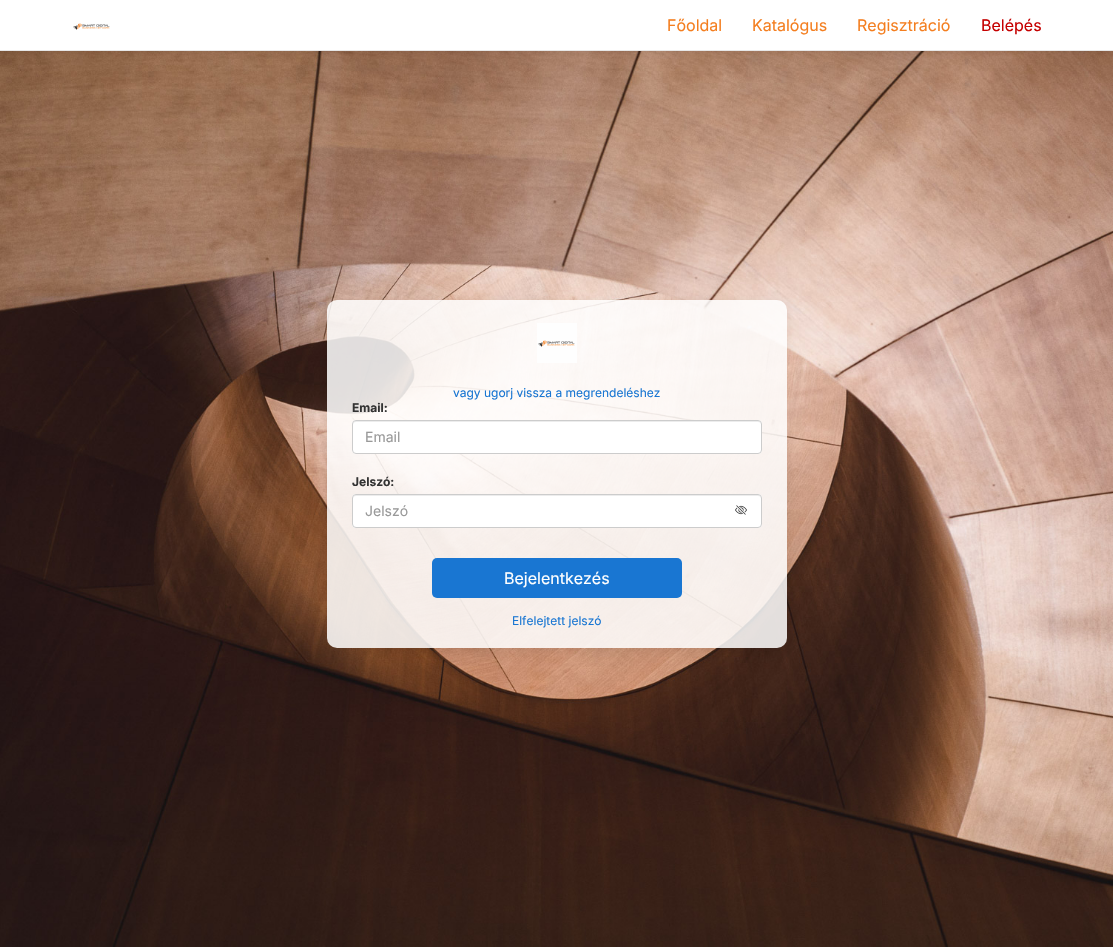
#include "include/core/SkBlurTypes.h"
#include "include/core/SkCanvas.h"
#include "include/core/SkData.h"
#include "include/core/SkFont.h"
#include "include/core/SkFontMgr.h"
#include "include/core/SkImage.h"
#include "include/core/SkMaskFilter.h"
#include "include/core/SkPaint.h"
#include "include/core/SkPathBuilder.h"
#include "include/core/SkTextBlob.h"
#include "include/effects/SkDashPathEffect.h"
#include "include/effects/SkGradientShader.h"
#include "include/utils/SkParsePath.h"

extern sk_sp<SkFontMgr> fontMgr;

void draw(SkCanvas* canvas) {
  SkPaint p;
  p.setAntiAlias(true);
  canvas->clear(SK_ColorWHITE);
  canvas->drawImageRect(SkImages::DeferredFromEncodedData(SkData::MakeFromFileName("images/2.png")), SkRect::MakeLTRB(0, 51, 1113, 947), SkSamplingOptions());
  p.setColor(SkColorSetARGB(18, 0, 0, 0));
  p.setMaskFilter(SkMaskFilter::MakeBlur(kNormal_SkBlurStyle, 2.5f));
  canvas->drawRect(SkRect::MakeLTRB(0, 1, 1113, 52), p);
  p.setMaskFilter(nullptr);
  p.setColor(SK_ColorWHITE);
  canvas->drawRect(SkRect::MakeLTRB(0, 0, 1113, 50), p);
  p.setColor(SkColorSetRGB(231, 231, 231));
  canvas->drawRect(SkRect::MakeLTRB(0, 50, 1113, 51), p);
  canvas->drawImageRect(SkImages::DeferredFromEncodedData(SkData::MakeFromFileName("images/1.png")), SkRect::MakeLTRB(73, 23, 110, 30), SkSamplingOptions());
  canvas->save();
  canvas->clipPath(SkPathBuilder(SkPathFillType::kEvenOdd).moveTo(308, 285).lineTo(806, 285).lineTo(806, 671).lineTo(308, 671).close().moveTo(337, 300).lineTo(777, 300).cubicTo(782.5f, 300, 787, 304.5f, 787, 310).lineTo(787, 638).cubicTo(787, 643.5f, 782.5f, 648, 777, 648).lineTo(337, 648).cubicTo(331.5f, 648, 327, 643.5f, 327, 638).lineTo(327, 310).cubicTo(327, 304.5f, 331.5f, 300, 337, 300).close().detach(), true);
  p.setColor(SkColorSetARGB(20, 0, 0, 0));
  p.setMaskFilter(SkMaskFilter::MakeBlur(kNormal_SkBlurStyle, 6));
  canvas->drawRoundRect(SkRect::MakeLTRB(327, 304, 787, 652), 10, 10, p);
  p.setMaskFilter(nullptr);
  canvas->restore();
  p.setColor(SkColorSetARGB(217, 255, 255, 255));
  canvas->drawRoundRect(SkRect::MakeLTRB(327, 300, 787, 648), 10, 10, p);
  canvas->drawImageRect(SkImages::DeferredFromEncodedData(SkData::MakeFromFileName("images/3.png")), SkRect::MakeLTRB(537, 323, 577, 363), SkSamplingOptions());
  p.setColor(SK_ColorWHITE);
  canvas->drawRoundRect(SkRect::MakeLTRB(352, 420, 762, 454), 4, 4, p);
  p.setColor(SkColorSetRGB(236, 236, 236));
  canvas->drawPath(SkPathBuilder().moveTo(356, 422).lineTo(758, 422).cubicTo(760, 422, 761, 423, 761, 425).cubicTo(761, 423, 760, 421, 758, 421).lineTo(356, 421).cubicTo(354, 421, 353, 423, 353, 425).cubicTo(353, 423, 354, 422, 356, 422).close().detach(), p);
  p.setStyle(SkPaint::kStroke_Style);
  p.setStrokeWidth(1);
  p.setColor(SkColorSetRGB(204, 204, 204));
  canvas->drawRoundRect(SkRect::MakeLTRB(352.5f, 420.5f, 761.5f, 453.5f), 3.5f, 3.5f, p);
  p.setStyle(SkPaint::kFill_Style);
  p.setColor(SK_ColorWHITE);
  canvas->drawRoundRect(SkRect::MakeLTRB(352, 494, 762, 528), 4, 4, p);
  p.setColor(SkColorSetRGB(236, 236, 236));
  canvas->drawPath(SkPathBuilder().moveTo(356, 496).lineTo(758, 496).cubicTo(760, 496, 761, 497, 761, 499).cubicTo(761, 497, 760, 495, 758, 495).lineTo(356, 495).cubicTo(354, 495, 353, 497, 353, 499).cubicTo(353, 497, 354, 496, 356, 496).close().detach(), p);
  p.setStyle(SkPaint::kStroke_Style);
  p.setColor(SkColorSetRGB(204, 204, 204));
  canvas->drawRoundRect(SkRect::MakeLTRB(352.5f, 494.5f, 761.5f, 527.5f), 3.5f, 3.5f, p);
  canvas->drawImageRect(SkImages::DeferredFromEncodedData(SkData::MakeFromFileName("images/4.png")), SkRect::MakeLTRB(735, 505, 747, 515), SkSamplingOptions());
  p.setStyle(SkPaint::kFill_Style);
  p.setColor(SkColorSetRGB(25, 118, 210));
  canvas->drawRoundRect(SkRect::MakeLTRB(432, 558, 682, 598), 5, 5, p);
  SkFont font1(fontMgr->matchFamilyStyle("Inter", SkFontStyle::Normal()), 16);
  font1.setSubpixel(true);
  p.setColor(SkColorSetRGB(244, 126, 31));
  canvas->drawString("Főoldal", 667, 31, font1, p);
  canvas->drawString("Katalógus", 752, 31, font1, p);
  canvas->drawString("Regisztráció", 857, 31, font1, p);
  p.setColor(SkColorSetRGB(197, 0, 0));
  canvas->drawString("Belépés", 981, 31, font1, p);
  SkFont font2(fontMgr->matchFamilyStyle("Inter", SkFontStyle::Normal()), 12);
  font2.setSubpixel(true);
  p.setColor(SkColorSetRGB(25, 118, 210));
  canvas->drawString("vagy ugorj vissza a megrendeléshez", 453, 397, font2, p);
  SkFont font3(fontMgr->matchFamilyStyle("Inter", SkFontStyle::Bold()), 12);
  font3.setSubpixel(true);
  p.setColor(SkColorSetRGB(51, 51, 51));
  canvas->drawString("Email:", 352, 412, font3, p);
  SkFont font4(fontMgr->matchFamilyStyle("Inter", SkFontStyle::Normal()), 14);
  font4.setSubpixel(true);
  p.setColor(SkColorSetRGB(153, 153, 153));
  canvas->drawString("Email", 365, 442, font4, p);
  p.setColor(SkColorSetRGB(51, 51, 51));
  canvas->drawString("Jelszó:", 352, 486, font3, p);
  p.setColor(SkColorSetRGB(153, 153, 153));
  canvas->drawString("Jelszó", 365, 516, font4, p);
  p.setColor(SK_ColorWHITE);
  canvas->drawString("Bejelentkezés", 504, 584, font1, p);
  p.setColor(SkColorSetRGB(25, 118, 210));
  canvas->drawString("Elfelejtett jelszó", 512, 625, font2, p);
}
